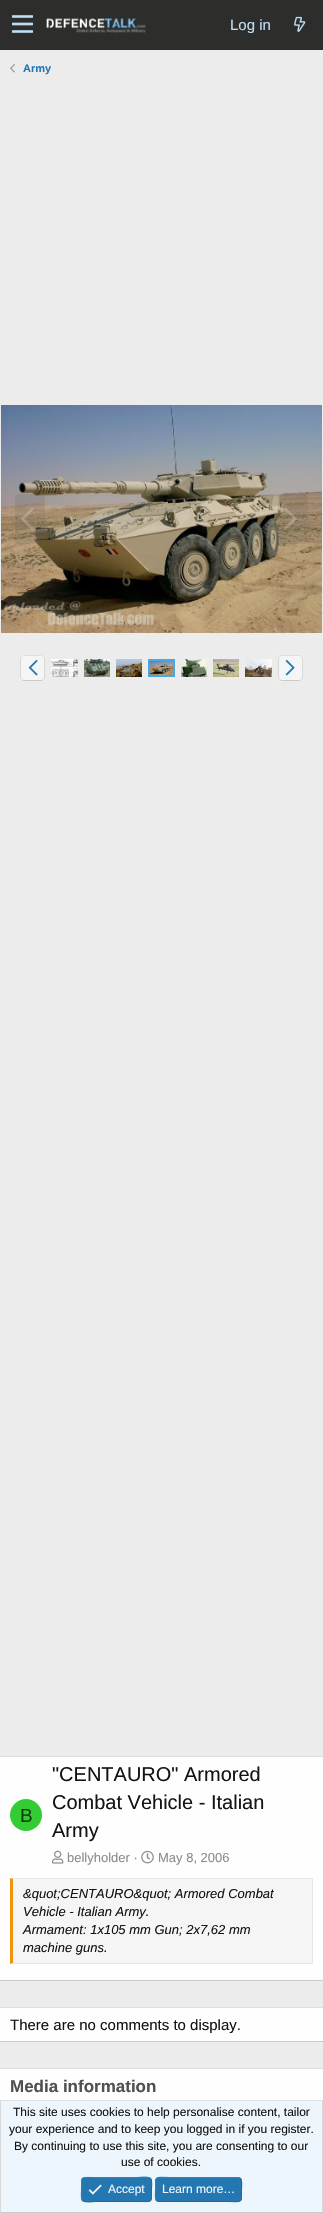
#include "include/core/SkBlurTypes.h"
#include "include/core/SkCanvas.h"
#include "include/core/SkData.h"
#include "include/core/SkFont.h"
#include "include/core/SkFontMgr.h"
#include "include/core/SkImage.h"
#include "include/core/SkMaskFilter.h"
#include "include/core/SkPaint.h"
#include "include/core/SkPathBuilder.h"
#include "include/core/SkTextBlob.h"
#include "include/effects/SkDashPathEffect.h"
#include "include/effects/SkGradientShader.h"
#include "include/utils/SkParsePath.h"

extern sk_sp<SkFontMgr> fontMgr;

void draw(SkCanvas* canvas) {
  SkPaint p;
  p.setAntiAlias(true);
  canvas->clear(SkColorSetRGB(236, 236, 236));
  p.setColor(SkColorSetRGB(45, 45, 43));
  canvas->drawRect(SkRect::MakeLTRB(0, 0, 323, 50), p);
  canvas->drawImageRect(SkImages::DeferredFromEncodedData(SkData::MakeFromFileName("images/1.png")), SkRect::MakeLTRB(12, 15, 33, 33), SkSamplingOptions());
  canvas->drawImageRect(SkImages::DeferredFromEncodedData(SkData::MakeFromFileName("images/2.png")), SkRect::MakeLTRB(46, 18, 146, 33), SkSamplingOptions());
  canvas->drawImageRect(SkImages::DeferredFromEncodedData(SkData::MakeFromFileName("images/3.png")), SkRect::MakeLTRB(294, 16, 306, 32), SkSamplingOptions());
  canvas->drawImageRect(SkImages::DeferredFromEncodedData(SkData::MakeFromFileName("images/4.png")), SkRect::MakeLTRB(10, 64, 15, 73), SkSamplingOptions());
  canvas->drawImageRect(SkImages::DeferredFromEncodedData(SkData::MakeFromFileName("images/5.png")), SkRect::MakeLTRB(1, 405, 322, 633), SkSamplingOptions());
  p.setColor(SkColorSetARGB(36, 80, 80, 80));
  canvas->drawRoundRect(SkRect::MakeLTRB(15, 494, 45, 544), 4, 4, p);
  canvas->drawImageRect(SkImages::DeferredFromEncodedData(SkData::MakeFromFileName("images/6.png")), SkRect::MakeLTRB(21, 507, 34, 530), SkSamplingOptions());
  canvas->drawRoundRect(SkRect::MakeLTRB(278, 494, 308, 544), 4, 4, p);
  canvas->drawImageRect(SkImages::DeferredFromEncodedData(SkData::MakeFromFileName("images/7.png")), SkRect::MakeLTRB(284, 507, 297, 530), SkSamplingOptions());
  p.setColor(SkColorSetRGB(245, 245, 245));
  canvas->drawRoundRect(SkRect::MakeLTRB(20, 655, 45, 681), 4, 4, p);
  p.setStyle(SkPaint::kStroke_Style);
  p.setStrokeWidth(1);
  p.setColor(SkColorSetRGB(223, 223, 223));
  canvas->drawPath(SkPathBuilder().moveTo(21.5f, 656.5f).cubicTo(22, 656, 23, 655.5f, 24, 655.5f).lineTo(41, 655.5f).cubicTo(42, 655.5f, 43, 656, 43.5f, 656.5f).detach(), p);
  p.setColor(SkColorSetRGB(216, 216, 216));
  canvas->drawPath(SkPathBuilder().moveTo(43.5f, 656.5f).cubicTo(44, 657, 44.5f, 658, 44.5f, 659).lineTo(44.5f, 677).cubicTo(44.5f, 678, 44, 679, 43.5f, 679.5f).detach(), p);
  p.setColor(SkColorSetRGB(203, 203, 203));
  canvas->drawPath(SkPathBuilder().moveTo(43.5f, 679.5f).cubicTo(43, 680, 42, 680.5f, 41, 680.5f).lineTo(24, 680.5f).cubicTo(23, 680.5f, 22, 680, 21.5f, 679.5f).detach(), p);
  p.setColor(SkColorSetRGB(216, 216, 216));
  canvas->drawPath(SkPathBuilder().moveTo(21.5f, 679.5f).cubicTo(21, 679, 20.5f, 678, 20.5f, 677).lineTo(20.5f, 659).cubicTo(20.5f, 658, 21, 657, 21.5f, 656.5f).detach(), p);
  canvas->drawImageRect(SkImages::DeferredFromEncodedData(SkData::MakeFromFileName("images/8.png")), SkRect::MakeLTRB(28, 659, 38, 676), SkSamplingOptions());
  canvas->drawImageRect(SkImages::DeferredFromEncodedData(SkData::MakeFromFileName("images/9.png")), SkRect::MakeLTRB(51, 659, 78, 677), SkSamplingOptions());
  canvas->drawImageRect(SkImages::DeferredFromEncodedData(SkData::MakeFromFileName("images/10.png")), SkRect::MakeLTRB(84, 659, 110, 677), SkSamplingOptions());
  canvas->drawImageRect(SkImages::DeferredFromEncodedData(SkData::MakeFromFileName("images/11.png")), SkRect::MakeLTRB(116, 659, 142, 677), SkSamplingOptions());
  p.setStrokeWidth(2);
  p.setColor(SkColorSetRGB(71, 167, 235));
  canvas->drawRect(SkRect::MakeLTRB(149, 660, 174, 676), p);
  canvas->drawImageRect(SkImages::DeferredFromEncodedData(SkData::MakeFromFileName("images/12.png")), SkRect::MakeLTRB(150, 661, 173, 675), SkSamplingOptions());
  canvas->drawImageRect(SkImages::DeferredFromEncodedData(SkData::MakeFromFileName("images/13.png")), SkRect::MakeLTRB(181, 659, 207, 677), SkSamplingOptions());
  canvas->drawImageRect(SkImages::DeferredFromEncodedData(SkData::MakeFromFileName("images/14.png")), SkRect::MakeLTRB(213, 659, 239, 677), SkSamplingOptions());
  canvas->drawImageRect(SkImages::DeferredFromEncodedData(SkData::MakeFromFileName("images/15.png")), SkRect::MakeLTRB(245, 659, 272, 677), SkSamplingOptions());
  p.setStyle(SkPaint::kFill_Style);
  p.setColor(SkColorSetRGB(245, 245, 245));
  canvas->drawRoundRect(SkRect::MakeLTRB(278, 655, 303, 681), 4, 4, p);
  p.setStyle(SkPaint::kStroke_Style);
  p.setStrokeWidth(1);
  p.setColor(SkColorSetRGB(223, 223, 223));
  canvas->drawPath(SkPathBuilder().moveTo(279.5f, 656.5f).cubicTo(280, 656, 281, 655.5f, 282, 655.5f).lineTo(299, 655.5f).cubicTo(300, 655.5f, 301, 656, 301.5f, 656.5f).detach(), p);
  p.setColor(SkColorSetRGB(216, 216, 216));
  canvas->drawPath(SkPathBuilder().moveTo(301.5f, 656.5f).cubicTo(302, 657, 302.5f, 658, 302.5f, 659).lineTo(302.5f, 677).cubicTo(302.5f, 678, 302, 679, 301.5f, 679.5f).detach(), p);
  p.setColor(SkColorSetRGB(203, 203, 203));
  canvas->drawPath(SkPathBuilder().moveTo(301.5f, 679.5f).cubicTo(301, 680, 300, 680.5f, 299, 680.5f).lineTo(282, 680.5f).cubicTo(281, 680.5f, 280, 680, 279.5f, 679.5f).detach(), p);
  p.setColor(SkColorSetRGB(216, 216, 216));
  canvas->drawPath(SkPathBuilder().moveTo(279.5f, 679.5f).cubicTo(279, 679, 278.5f, 678, 278.5f, 677).lineTo(278.5f, 659).cubicTo(278.5f, 658, 279, 657, 279.5f, 656.5f).detach(), p);
  canvas->drawImageRect(SkImages::DeferredFromEncodedData(SkData::MakeFromFileName("images/16.png")), SkRect::MakeLTRB(285, 659, 295, 676), SkSamplingOptions());
  p.setStyle(SkPaint::kFill_Style);
  p.setColor(SkColorSetRGB(254, 254, 254));
  canvas->drawRect(SkRect::MakeLTRB(0, 1757, 323, 1980), p);
  p.setColor(SkColorSetRGB(223, 223, 223));
  canvas->drawRect(SkRect::MakeLTRB(0, 1756, 323, 1757), p);
  p.setColor(SkColorSetRGB(203, 203, 203));
  canvas->drawRect(SkRect::MakeLTRB(0, 1980, 323, 1981), p);
  p.setColor(SkColorSetRGB(51, 204, 51));
  canvas->drawCircle(26, 1815, 16, p);
  canvas->drawImageRect(SkImages::DeferredFromEncodedData(SkData::MakeFromFileName("images/17.png")), SkRect::MakeLTRB(52, 1850, 64, 1864), SkSamplingOptions());
  canvas->drawImageRect(SkImages::DeferredFromEncodedData(SkData::MakeFromFileName("images/18.png")), SkRect::MakeLTRB(141, 1850, 154, 1864), SkSamplingOptions());
  p.setColor(SkColorSetRGB(245, 245, 245));
  canvas->drawRect(SkRect::MakeLTRB(13, 1879, 312, 1963), p);
  p.setColor(SkColorSetRGB(231, 231, 231));
  canvas->drawPath(SkPathBuilder().moveTo(10, 1878).lineTo(313, 1878).lineTo(312, 1879).lineTo(13, 1879).close().detach(), p);
  canvas->drawRect(SkRect::MakeLTRB(312, 1878, 313, 1964), p);
  canvas->drawPath(SkPathBuilder().moveTo(313, 1964).lineTo(10, 1964).lineTo(13, 1963).lineTo(312, 1963).close().detach(), p);
  p.setColor(SkColorSetRGB(242, 147, 13));
  canvas->drawPath(SkPathBuilder().moveTo(10, 1964).lineTo(10, 1878).lineTo(13, 1879).lineTo(13, 1963).close().detach(), p);
  p.setColor(SkColorSetRGB(254, 254, 254));
  canvas->drawRect(SkRect::MakeLTRB(0, 2008, 323, 2041), p);
  p.setColor(SkColorSetRGB(223, 223, 223));
  canvas->drawRect(SkRect::MakeLTRB(0, 2007, 323, 2008), p);
  p.setColor(SkColorSetRGB(203, 203, 203));
  canvas->drawRect(SkRect::MakeLTRB(0, 2041, 323, 2042), p);
  p.setColor(SkColorSetRGB(254, 254, 254));
  canvas->drawRect(SkRect::MakeLTRB(0, 2069, 323, 2100), p);
  p.setColor(SkColorSetRGB(223, 223, 223));
  canvas->drawRect(SkRect::MakeLTRB(0, 2068, 323, 2069), p);
  p.setColor(SkColorSetRGB(237, 246, 253));
  canvas->drawRect(SkRect::MakeLTRB(1, 2101, 322, 2212), p);
  p.setColor(SkColorSetRGB(223, 223, 223));
  canvas->drawRect(SkRect::MakeLTRB(0, 2100, 323, 2101), p);
  p.setColor(SkColorSetRGB(216, 216, 216));
  canvas->drawRect(SkRect::MakeLTRB(322, 2100, 323, 2213), p);
  p.setColor(SkColorSetRGB(203, 203, 203));
  canvas->drawRect(SkRect::MakeLTRB(0, 2212, 323, 2213), p);
  p.setColor(SkColorSetRGB(216, 216, 216));
  canvas->drawRect(SkRect::MakeLTRB(0, 2100, 1, 2213), p);
  p.setColor(SkColorSetRGB(37, 119, 177));
  canvas->drawRoundRect(SkRect::MakeLTRB(81, 2177, 152, 2202), 4, 4, p);
  p.setStyle(SkPaint::kStroke_Style);
  p.setColor(SkColorSetRGB(33, 105, 156));
  canvas->drawPath(SkPathBuilder().moveTo(150.5f, 2178.5f).cubicTo(152.5f, 2181, 151.5f, 2187, 151.5f, 2189.5f).cubicTo(151.5f, 2203.5f, 152.5f, 2201.5f, 137.5f, 2201.5f).lineTo(95.5f, 2201.5f).cubicTo(94.5f, 2201.5f, 85, 2203, 82.5f, 2200.5f).detach(), p);
  p.setColor(SkColorSetRGB(41, 133, 198));
  canvas->drawPath(SkPathBuilder().moveTo(82.5f, 2200.5f).cubicTo(80.5f, 2198, 81.5f, 2192, 81.5f, 2189.5f).cubicTo(81.5f, 2175.5f, 80.5f, 2177.5f, 95.5f, 2177.5f).lineTo(137.5f, 2177.5f).cubicTo(138.5f, 2177.5f, 148, 2176, 150.5f, 2178.5f).detach(), p);
  canvas->drawImageRect(SkImages::DeferredFromEncodedData(SkData::MakeFromFileName("images/19.png")), SkRect::MakeLTRB(88, 2184, 102, 2195), SkSamplingOptions());
  p.setStyle(SkPaint::kFill_Style);
  p.setColor(SkColorSetRGB(37, 119, 177));
  canvas->drawRoundRect(SkRect::MakeLTRB(155, 2177, 242, 2202), 4, 4, p);
  p.setStyle(SkPaint::kStroke_Style);
  p.setColor(SkColorSetRGB(33, 105, 156));
  canvas->drawPath(SkPathBuilder().moveTo(240.5f, 2178.5f).cubicTo(242.5f, 2181, 241.5f, 2187, 241.5f, 2189.5f).cubicTo(241.5f, 2204.5f, 242, 2201.5f, 225, 2201.5f).lineTo(159, 2201.5f).lineTo(156.5f, 2200.5f).detach(), p);
  p.setColor(SkColorSetRGB(41, 133, 198));
  canvas->drawPath(SkPathBuilder().moveTo(156.5f, 2200.5f).cubicTo(154.5f, 2198, 155.5f, 2192, 155.5f, 2189.5f).cubicTo(155.5f, 2174.5f, 155, 2177.5f, 172, 2177.5f).lineTo(238, 2177.5f).lineTo(240.5f, 2178.5f).detach(), p);
  SkFont font1(fontMgr->matchFamilyStyle("Liberation Sans", SkFontStyle::Normal()), 15);
  font1.setSubpixel(true);
  p.setStyle(SkPaint::kFill_Style);
  p.setColor(SkColorSetRGB(188, 222, 245));
  canvas->drawString("Log in", 230, 30, font1, p);
  SkFont font2(fontMgr->matchFamilyStyle("Liberation Sans", SkFontStyle::Bold()), 11);
  font2.setSubpixel(true);
  p.setColor(SkColorSetRGB(37, 119, 177));
  canvas->drawString("Army", 23, 72, font2, p);
  SkFont font3(fontMgr->matchFamilyStyle("Liberation Sans", SkFontStyle::Normal()), 19);
  font3.setSubpixel(true);
  p.setColor(SkColorSetRGB(15, 61, 15));
  canvas->drawString("B", 20, 1822, font3, p);
  SkFont font4(fontMgr->matchFamilyStyle("Liberation Sans", SkFontStyle::Normal()), 20);
  font4.setSubpixel(true);
  p.setColor(SkColorSetRGB(20, 20, 20));
  canvas->drawString("\"CENTAURO\" Armored", 52, 1781, font4, p);
  canvas->drawString("Combat Vehicle - Italian", 52, 1809, font4, p);
  canvas->drawString("Army", 52, 1837, font4, p);
  SkFont font5(fontMgr->matchFamilyStyle("Liberation Sans", SkFontStyle::Normal()), 13);
  font5.setSubpixel(true);
  p.setColor(SkColorSetRGB(140, 140, 140));
  canvas->drawString("bellyholder ·", 67, 1862, font5, p);
  canvas->drawString("May 8, 2006", 158, 1862, font5, p);
  SkFont font6(fontMgr->matchFamilyStyle("Liberation Sans", SkFontStyle::Italic()), 13);
  font6.setSubpixel(true);
  p.setColor(SkColorSetRGB(20, 20, 20));
  canvas->drawString("&quot;CENTAURO&quot; Armored Combat", 23, 1898, font6, p);
  canvas->drawString("Vehicle - Italian Army.", 23, 1916, font6, p);
  canvas->drawString("Armament: 1x105 mm Gun; 2x7,62 mm", 23, 1934, font6, p);
  canvas->drawString("machine guns.", 23, 1952, font6, p);
  canvas->drawString("There are no comments to display.", 10, 2030, font1, p);
  SkFont font7(fontMgr->matchFamilyStyle("Liberation Sans", SkFontStyle::Bold()), 17);
  font7.setSubpixel(true);
  p.setColor(SkColorSetRGB(80, 80, 80));
  canvas->drawString("Media information", 10, 2092, font7, p);
  SkFont font8(fontMgr->matchFamilyStyle("Liberation Sans", SkFontStyle::Normal()), 12);
  font8.setSubpixel(true);
  p.setColor(SkColorSetRGB(20, 20, 20));
  canvas->drawString("This site uses cookies to help personalise content, tailor", 13, 2116, font8, p);
  canvas->drawString("your experience and to keep you logged in if you register.", 9, 2133, font8, p);
  canvas->drawString("By continuing to use this site, you are consenting to our", 14, 2150, font8, p);
  canvas->drawString("use of cookies.", 121, 2166, font8, p);
  p.setColor(SkColorSetRGB(237, 246, 253));
  canvas->drawString("Accept", 108, 2193, font8, p);
  canvas->drawString("Learn more…", 162, 2193, font8, p);
}
